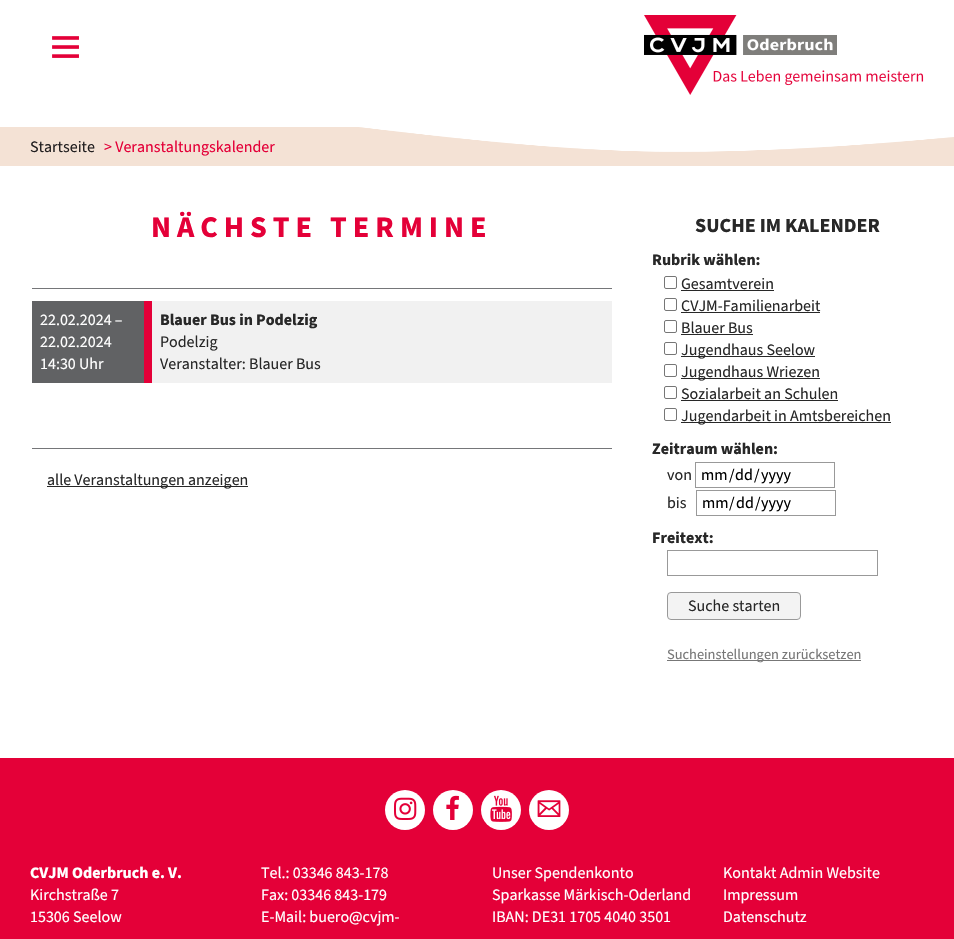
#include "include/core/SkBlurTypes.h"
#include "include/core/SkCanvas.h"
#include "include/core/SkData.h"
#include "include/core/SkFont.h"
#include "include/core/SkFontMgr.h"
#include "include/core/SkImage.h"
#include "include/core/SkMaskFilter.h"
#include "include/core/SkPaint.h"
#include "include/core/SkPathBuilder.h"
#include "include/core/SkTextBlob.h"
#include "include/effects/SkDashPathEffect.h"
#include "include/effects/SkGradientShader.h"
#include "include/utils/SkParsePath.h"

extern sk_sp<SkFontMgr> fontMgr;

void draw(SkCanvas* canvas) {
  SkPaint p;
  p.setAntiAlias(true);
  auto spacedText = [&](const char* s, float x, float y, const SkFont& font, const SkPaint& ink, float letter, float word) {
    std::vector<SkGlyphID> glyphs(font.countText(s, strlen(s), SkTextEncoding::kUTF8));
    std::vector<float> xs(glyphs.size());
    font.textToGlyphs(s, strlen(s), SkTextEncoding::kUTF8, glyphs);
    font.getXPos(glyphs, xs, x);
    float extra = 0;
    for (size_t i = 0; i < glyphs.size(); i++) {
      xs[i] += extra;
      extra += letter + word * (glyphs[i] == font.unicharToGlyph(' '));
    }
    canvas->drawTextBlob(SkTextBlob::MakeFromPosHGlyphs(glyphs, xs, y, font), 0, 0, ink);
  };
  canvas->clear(SkColorSetRGB(228, 0, 56));
  p.setColor(SK_ColorWHITE);
  canvas->drawRect(SkRect::MakeLTRB(0, 0, 954, 127), p);
  p.setColor(SkColorSetRGB(244, 226, 213));
  canvas->drawRect(SkRect::MakeLTRB(0, 127, 954, 166), p);
  canvas->drawImageRect(SkImages::DeferredFromEncodedData(SkData::MakeFromFileName("images/1.png")), SkRect::MakeLTRB(359, 127, 954, 152), SkSamplingOptions());
  canvas->drawImageRect(SkImages::DeferredFromEncodedData(SkData::MakeFromFileName("images/2.png")), SkRect::MakeLTRB(52, 36, 79, 58), SkSamplingOptions());
  canvas->drawImageRect(SkImages::DeferredFromEncodedData(SkData::MakeFromFileName("images/3.png")), SkRect::MakeLTRB(644, 15, 924, 95), SkSamplingOptions());
  p.setColor(SK_ColorWHITE);
  canvas->drawRect(SkRect::MakeLTRB(0, 166, 954, 758), p);
  p.setColor(SkColorSetRGB(117, 118, 121));
  canvas->drawRect(SkRect::MakeLTRB(32, 288, 612, 289), p);
  p.setColor(SkColorSetRGB(97, 98, 100));
  canvas->drawRect(SkRect::MakeLTRB(32, 301, 144, 383), p);
  p.setColor(SkColorSetRGB(241, 241, 241));
  canvas->drawRect(SkRect::MakeLTRB(152, 301, 612, 383), p);
  p.setColor(SkColorSetRGB(228, 0, 56));
  canvas->drawRect(SkRect::MakeLTRB(144, 301, 152, 383), p);
  p.setColor(SkColorSetRGB(117, 118, 121));
  canvas->drawRect(SkRect::MakeLTRB(32, 448, 612, 449), p);
  p.setColor(SkColorSetRGB(40, 40, 40));
  canvas->drawRect(SkRect::MakeLTRB(47, 486, 248, 487), p);
  p.setStyle(SkPaint::kStroke_Style);
  p.setStrokeWidth(1);
  p.setColor(SkColorSetRGB(118, 118, 118));
  canvas->drawRoundRect(SkRect::MakeLTRB(664.5f, 276.5f, 676.5f, 288.5f), 1.5f, 1.5f, p);
  p.setStyle(SkPaint::kFill_Style);
  p.setColor(SkColorSetRGB(40, 40, 40));
  canvas->drawRect(SkRect::MakeLTRB(681, 290, 774, 291), p);
  p.setStyle(SkPaint::kStroke_Style);
  p.setColor(SkColorSetRGB(118, 118, 118));
  canvas->drawRoundRect(SkRect::MakeLTRB(664.5f, 298.5f, 676.5f, 310.5f), 1.5f, 1.5f, p);
  p.setStyle(SkPaint::kFill_Style);
  p.setColor(SkColorSetRGB(40, 40, 40));
  canvas->drawRect(SkRect::MakeLTRB(681, 312, 820, 313), p);
  p.setStyle(SkPaint::kStroke_Style);
  p.setColor(SkColorSetRGB(118, 118, 118));
  canvas->drawRoundRect(SkRect::MakeLTRB(664.5f, 320.5f, 676.5f, 332.5f), 1.5f, 1.5f, p);
  p.setStyle(SkPaint::kFill_Style);
  p.setColor(SkColorSetRGB(40, 40, 40));
  canvas->drawRect(SkRect::MakeLTRB(681, 334, 753, 335), p);
  p.setStyle(SkPaint::kStroke_Style);
  p.setColor(SkColorSetRGB(118, 118, 118));
  canvas->drawRoundRect(SkRect::MakeLTRB(664.5f, 342.5f, 676.5f, 354.5f), 1.5f, 1.5f, p);
  p.setStyle(SkPaint::kFill_Style);
  p.setColor(SkColorSetRGB(40, 40, 40));
  canvas->drawRect(SkRect::MakeLTRB(681, 356, 815, 357), p);
  p.setStyle(SkPaint::kStroke_Style);
  p.setColor(SkColorSetRGB(118, 118, 118));
  canvas->drawRoundRect(SkRect::MakeLTRB(664.5f, 364.5f, 676.5f, 376.5f), 1.5f, 1.5f, p);
  p.setStyle(SkPaint::kFill_Style);
  p.setColor(SkColorSetRGB(40, 40, 40));
  canvas->drawRect(SkRect::MakeLTRB(681, 378, 820, 379), p);
  p.setStyle(SkPaint::kStroke_Style);
  p.setColor(SkColorSetRGB(118, 118, 118));
  canvas->drawRoundRect(SkRect::MakeLTRB(664.5f, 386.5f, 676.5f, 398.5f), 1.5f, 1.5f, p);
  p.setStyle(SkPaint::kFill_Style);
  p.setColor(SkColorSetRGB(40, 40, 40));
  canvas->drawRect(SkRect::MakeLTRB(681, 400, 838, 401), p);
  p.setStyle(SkPaint::kStroke_Style);
  p.setColor(SkColorSetRGB(118, 118, 118));
  canvas->drawRoundRect(SkRect::MakeLTRB(664.5f, 408.5f, 676.5f, 420.5f), 1.5f, 1.5f, p);
  p.setStyle(SkPaint::kFill_Style);
  p.setColor(SkColorSetRGB(40, 40, 40));
  canvas->drawRect(SkRect::MakeLTRB(681, 422, 891, 423), p);
  p.setStyle(SkPaint::kStroke_Style);
  p.setColor(SkColorSetRGB(153, 153, 153));
  canvas->drawRect(SkRect::MakeLTRB(695.5f, 462.5f, 834.5f, 487.5f), p);
  canvas->drawRect(SkRect::MakeLTRB(696.5f, 490.5f, 835.5f, 515.5f), p);
  canvas->drawRect(SkRect::MakeLTRB(667.5f, 550.5f, 877.5f, 575.5f), p);
  p.setStyle(SkPaint::kFill_Style);
  p.setColor(SkColorSetRGB(243, 243, 243));
  canvas->drawRoundRect(SkRect::MakeLTRB(667.5f, 592.5f, 800.5f, 619.5f), 3.5f, 3.5f, p);
  p.setStyle(SkPaint::kStroke_Style);
  p.setColor(SkColorSetRGB(153, 153, 153));
  canvas->drawRoundRect(SkRect::MakeLTRB(667.5f, 592.5f, 800.5f, 619.5f), 3.5f, 3.5f, p);
  p.setStyle(SkPaint::kFill_Style);
  p.setColor(SkColorSetRGB(119, 119, 119));
  canvas->drawRect(SkRect::MakeLTRB(667, 660, 861, 661), p);
  p.setColor(SK_ColorWHITE);
  canvas->drawCircle(405, 810, 20, p);
  canvas->drawImageRect(SkImages::DeferredFromEncodedData(SkData::MakeFromFileName("images/4.png")), SkRect::MakeLTRB(394, 797, 417, 820), SkSamplingOptions());
  canvas->drawCircle(453, 810, 20, p);
  canvas->drawImageRect(SkImages::DeferredFromEncodedData(SkData::MakeFromFileName("images/5.png")), SkRect::MakeLTRB(446, 795, 459, 820), SkSamplingOptions());
  canvas->drawCircle(501, 810, 20, p);
  canvas->drawImageRect(SkImages::DeferredFromEncodedData(SkData::MakeFromFileName("images/6.png")), SkRect::MakeLTRB(490, 795, 512, 822), SkSamplingOptions());
  canvas->drawCircle(549, 810, 20, p);
  canvas->drawImageRect(SkImages::DeferredFromEncodedData(SkData::MakeFromFileName("images/7.png")), SkRect::MakeLTRB(537, 800, 561, 817), SkSamplingOptions());
  SkFont font1(fontMgr->matchFamilyStyle("Source Sans Pro", SkFontStyle::Normal()), 16);
  font1.setSubpixel(true);
  p.setColor(SkColorSetRGB(33, 30, 31));
  canvas->drawString("Startseite", 30, 152, font1, p);
  p.setColor(SkColorSetRGB(228, 0, 56));
  canvas->drawString("> Veranstaltungskalender", 104, 152, font1, p);
  SkFont font2(fontMgr->matchFamilyStyle("Source Sans Pro", SkFontStyle::Bold()), 30);
  font2.setSubpixel(true);
  spacedText("NÄCHSTE TERMINE", 151, 237, font2, p, 6, 0);
  p.setColor(SK_ColorWHITE);
  canvas->drawString("22.02.2024 –", 40, 325, font1, p);
  canvas->drawString("22.02.2024", 40, 347, font1, p);
  canvas->drawString("14:30 Uhr", 40, 369, font1, p);
  SkFont font3(fontMgr->matchFamilyStyle("Source Sans Pro", SkFontStyle::Bold()), 16);
  font3.setSubpixel(true);
  p.setColor(SkColorSetRGB(40, 40, 40));
  canvas->drawString("Blauer Bus in Podelzig", 160, 325, font3, p);
  canvas->drawString("Podelzig", 160, 347, font1, p);
  canvas->drawString("Veranstalter: Blauer Bus", 160, 369, font1, p);
  canvas->drawString("alle Veranstaltungen anzeigen", 47, 485, font1, p);
  SkFont font4(fontMgr->matchFamilyStyle("Source Sans Pro", SkFontStyle::Bold()), 20);
  font4.setSubpixel(true);
  canvas->drawString("SUCHE IM KALENDER", 695, 232, font4, p);
  canvas->drawString("Rubrik wählen:", 652, 265, font3, p);
  canvas->drawString("Gesamtverein", 681, 289, font1, p);
  canvas->drawString("CVJM-Familienarbeit", 681, 311, font1, p);
  canvas->drawString("Blauer Bus", 681, 333, font1, p);
  canvas->drawString("Jugendhaus Seelow", 681, 355, font1, p);
  canvas->drawString("Jugendhaus Wriezen", 681, 377, font1, p);
  canvas->drawString("Sozialarbeit an Schulen", 681, 399, font1, p);
  canvas->drawString("Jugendarbeit in Amtsbereichen", 681, 421, font1, p);
  canvas->drawString("Zeitraum wählen:", 652, 454, font3, p);
  canvas->drawString("von", 667, 480, font1, p);
  p.setColor(SK_ColorBLACK);
  canvas->drawString("mm", 701, 480, font1, p);
  canvas->drawString("/", 729, 480, font1, p);
  canvas->drawString("dd", 735, 480, font1, p);
  canvas->drawString("/", 754, 480, font1, p);
  canvas->drawString("yyyy", 761, 480, font1, p);
  p.setColor(SkColorSetRGB(40, 40, 40));
  canvas->drawString("bis", 667, 508, font1, p);
  p.setColor(SK_ColorBLACK);
  canvas->drawString("mm", 702, 508, font1, p);
  canvas->drawString("/", 729, 508, font1, p);
  canvas->drawString("dd", 736, 508, font1, p);
  canvas->drawString("/", 755, 508, font1, p);
  canvas->drawString("yyyy", 761, 508, font1, p);
  p.setColor(SkColorSetRGB(40, 40, 40));
  canvas->drawString("Freitext:", 652, 543, font3, p);
  canvas->drawString("Suche starten", 688, 611, font1, p);
  SkFont font5(fontMgr->matchFamilyStyle("Source Sans Pro", SkFontStyle::Normal()), 14.4f);
  font5.setSubpixel(true);
  p.setColor(SkColorSetRGB(119, 119, 119));
  canvas->drawString("Sucheinstellungen zurücksetzen", 667, 659, font5, p);
  p.setColor(SK_ColorWHITE);
  canvas->drawString("CVJM Oderbruch e. V.", 30, 878, font3, p);
  canvas->drawString("Kirchstraße 7", 30, 900, font1, p);
  canvas->drawString("15306 Seelow", 30, 922, font1, p);
  canvas->drawString("Tel.: 03346 843-178", 261, 878, font1, p);
  canvas->drawString("Fax: 03346 843-179", 261, 900, font1, p);
  canvas->drawString("E-Mail: buero@cvjm-", 261, 922, font1, p);
  canvas->drawString("Unser Spendenkonto", 492, 878, font1, p);
  canvas->drawString("Sparkasse Märkisch-Oderland", 492, 900, font1, p);
  canvas->drawString("IBAN: DE31 1705 4040 3501", 492, 922, font1, p);
  canvas->drawString("Kontakt Admin Website", 723, 878, font1, p);
  canvas->drawString("Impressum", 723, 900, font1, p);
  canvas->drawString("Datenschutz", 723, 922, font1, p);
}
